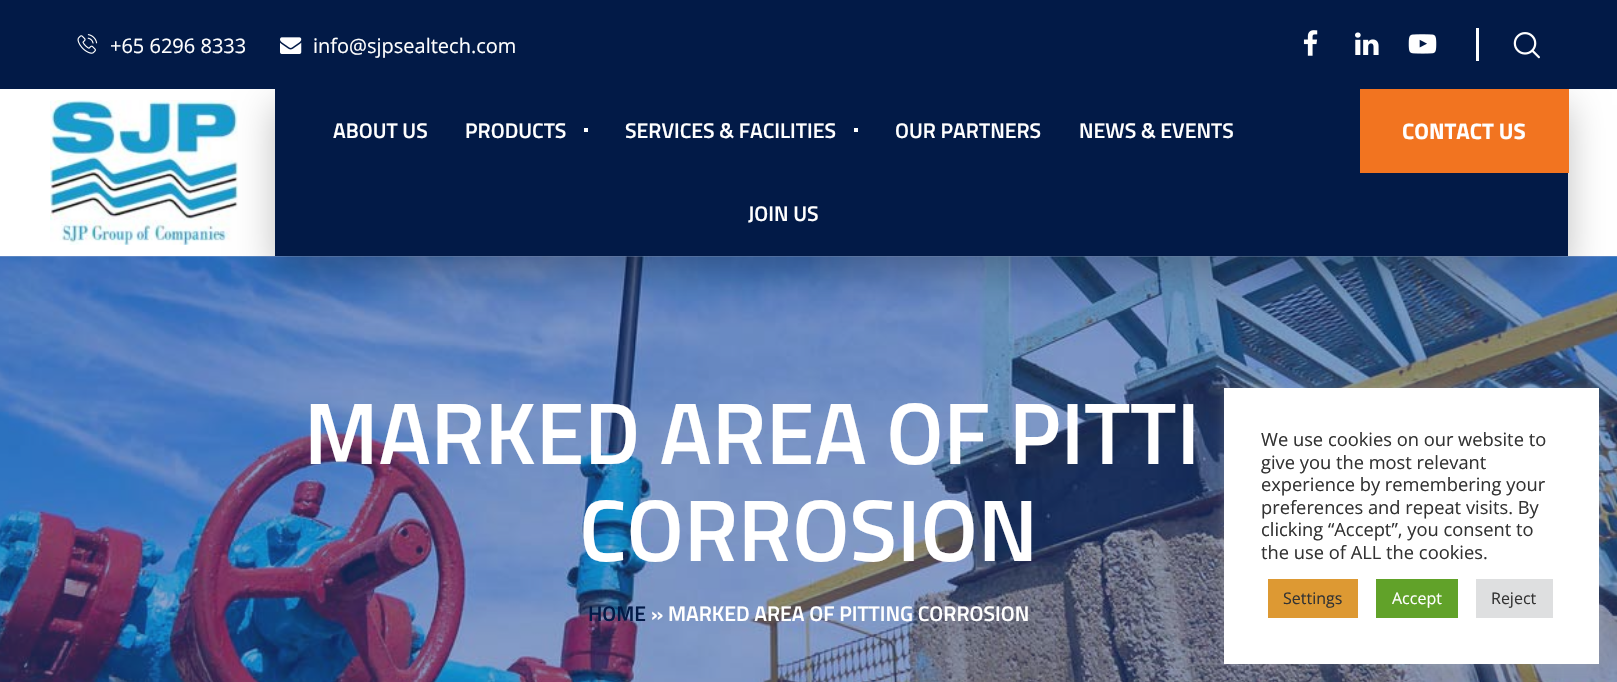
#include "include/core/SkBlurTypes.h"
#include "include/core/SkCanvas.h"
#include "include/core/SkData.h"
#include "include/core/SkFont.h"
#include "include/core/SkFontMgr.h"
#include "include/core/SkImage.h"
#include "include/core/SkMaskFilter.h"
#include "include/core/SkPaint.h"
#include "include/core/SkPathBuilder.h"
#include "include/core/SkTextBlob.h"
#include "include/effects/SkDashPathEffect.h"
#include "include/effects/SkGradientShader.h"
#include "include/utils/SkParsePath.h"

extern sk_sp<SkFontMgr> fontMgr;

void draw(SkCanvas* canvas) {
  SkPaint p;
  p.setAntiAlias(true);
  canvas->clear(SK_ColorWHITE);
  p.setColor(SkColorSetRGB(142, 164, 206));
  canvas->drawRect(SkRect::MakeLTRB(0, 256, 1617, 257), p);
  canvas->drawImageRect(SkImages::DeferredFromEncodedData(SkData::MakeFromFileName("images/7.png")), SkRect::MakeLTRB(50, 100, 238, 245), SkSamplingOptions());
  canvas->drawImageRect(SkImages::DeferredFromEncodedData(SkData::MakeFromFileName("images/8.png")), SkRect::MakeLTRB(0, 256, 1617, 682), SkSamplingOptions());
  p.setColor(SkColorSetARGB(64, 0, 0, 0));
  p.setMaskFilter(SkMaskFilter::MakeBlur(kNormal_SkBlurStyle, 18));
  canvas->drawRect(SkRect::MakeLTRB(275, 105, 1568, 273), p);
  p.setMaskFilter(nullptr);
  p.setColor(SkColorSetRGB(2, 26, 71));
  canvas->drawRect(SkRect::MakeLTRB(0, 0, 1617, 89), p);
  canvas->drawImageRect(SkImages::DeferredFromEncodedData(SkData::MakeFromFileName("images/1.png")), SkRect::MakeLTRB(77, 34, 98, 54), SkSamplingOptions());
  canvas->drawImageRect(SkImages::DeferredFromEncodedData(SkData::MakeFromFileName("images/2.png")), SkRect::MakeLTRB(280, 37, 302, 54), SkSamplingOptions());
  canvas->drawImageRect(SkImages::DeferredFromEncodedData(SkData::MakeFromFileName("images/3.png")), SkRect::MakeLTRB(1303, 30, 1318, 56), SkSamplingOptions());
  canvas->drawImageRect(SkImages::DeferredFromEncodedData(SkData::MakeFromFileName("images/4.png")), SkRect::MakeLTRB(1355, 32, 1379, 55), SkSamplingOptions());
  canvas->drawImageRect(SkImages::DeferredFromEncodedData(SkData::MakeFromFileName("images/5.png")), SkRect::MakeLTRB(1408, 34, 1437, 54), SkSamplingOptions());
  p.setColor(SK_ColorWHITE);
  canvas->drawRect(SkRect::MakeLTRB(1476, 28, 1479, 61), p);
  canvas->drawImageRect(SkImages::DeferredFromEncodedData(SkData::MakeFromFileName("images/6.png")), SkRect::MakeLTRB(1513, 32, 1540, 59), SkSamplingOptions());
  p.setColor(SkColorSetRGB(2, 26, 71));
  canvas->drawRect(SkRect::MakeLTRB(275, 89, 1568, 256), p);
  p.setColor(SK_ColorWHITE);
  canvas->drawRect(SkRect::MakeLTRB(584, 128, 588, 132), p);
  canvas->drawRect(SkRect::MakeLTRB(854, 128, 858, 132), p);
  p.setColor(SkColorSetRGB(242, 116, 32));
  canvas->drawRect(SkRect::MakeLTRB(1360, 89, 1569, 173), p);
  p.setColor(SkColorSetARGB(77, 172, 171, 171));
  p.setMaskFilter(SkMaskFilter::MakeBlur(kNormal_SkBlurStyle, 6));
  canvas->drawRect(SkRect::MakeLTRB(1224, 386, 1599, 663), p);
  p.setMaskFilter(nullptr);
  p.setColor(SK_ColorWHITE);
  canvas->drawRect(SkRect::MakeLTRB(1224, 388, 1599, 664), p);
  p.setColor(SkColorSetRGB(221, 153, 51));
  canvas->drawRect(SkRect::MakeLTRB(1268, 579, 1358, 618), p);
  p.setColor(SkColorSetRGB(97, 162, 41));
  canvas->drawRect(SkRect::MakeLTRB(1376, 579, 1458, 618), p);
  p.setColor(SkColorSetRGB(222, 223, 224));
  canvas->drawRect(SkRect::MakeLTRB(1476, 579, 1553, 618), p);
  SkFont font1(fontMgr->matchFamilyStyle("Open Sans", SkFontStyle::Normal()), 20);
  font1.setSubpixel(true);
  p.setColor(SK_ColorWHITE);
  canvas->drawString("+65 6296 8333", 110, 53, font1, p);
  canvas->drawString("info@sjpsealtech.com", 313, 53, font1, p);
  SkFont font2(fontMgr->matchFamilyStyle("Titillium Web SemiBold", SkFontStyle(600, SkFontStyle::kNormal_Width, SkFontStyle::kUpright_Slant)), 21.25f);
  font2.setSubpixel(true);
  canvas->drawString("ABOUT US", 333, 138, font2, p);
  canvas->drawString("PRODUCTS", 465, 138, font2, p);
  canvas->drawString("SERVICES & FACILITIES", 625, 138, font2, p);
  canvas->drawString("OUR PARTNERS", 895, 138, font2, p);
  canvas->drawString("NEWS & EVENTS", 1079, 138, font2, p);
  canvas->drawString("JOIN US", 748, 221, font2, p);
  SkFont font3(fontMgr->matchFamilyStyle("Titillium Web", SkFontStyle::Bold()), 22.5f);
  font3.setSubpixel(true);
  canvas->drawString("CONTACT US", 1402, 139, font3, p);
  SkFont font4(fontMgr->matchFamilyStyle("Titillium Web SemiBold", SkFontStyle(600, SkFontStyle::kNormal_Width, SkFontStyle::kUpright_Slant)), 87.5f);
  font4.setSubpixel(true);
  canvas->drawString("MARKED AREA OF PITTI", 304, 464, font4, p);
  canvas->drawString("CORROSION", 579, 561, font4, p);
  p.setColor(SkColorSetRGB(2, 26, 71));
  canvas->drawString("HOME", 588, 621, font2, p);
  p.setColor(SK_ColorWHITE);
  canvas->drawString("» MARKED AREA OF PITTING CORROSION", 651, 621, font2, p);
  SkFont font5(fontMgr->matchFamilyStyle("Open Sans", SkFontStyle::Normal()), 18.3f);
  font5.setSubpixel(true);
  p.setColor(SkColorSetRGB(51, 51, 51));
  canvas->drawString("We use cookies on our website to", 1261, 446, font5, p);
  canvas->drawString("give you the most relevant", 1261, 469, font5, p);
  canvas->drawString("experience by remembering your", 1261, 491, font5, p);
  canvas->drawString("preferences and repeat visits. By", 1261, 514, font5, p);
  canvas->drawString("clicking “Accept”, you consent to", 1261, 536, font5, p);
  canvas->drawString("the use of ALL the cookies.", 1261, 559, font5, p);
  SkFont font6(fontMgr->matchFamilyStyle("Open Sans", SkFontStyle::Normal()), 16);
  font6.setSubpixel(true);
  canvas->drawString("Settings", 1283, 604, font6, p);
  p.setColor(SK_ColorWHITE);
  canvas->drawString("Accept", 1392, 604, font6, p);
  p.setColor(SkColorSetRGB(51, 51, 51));
  canvas->drawString("Reject", 1491, 604, font6, p);
}
